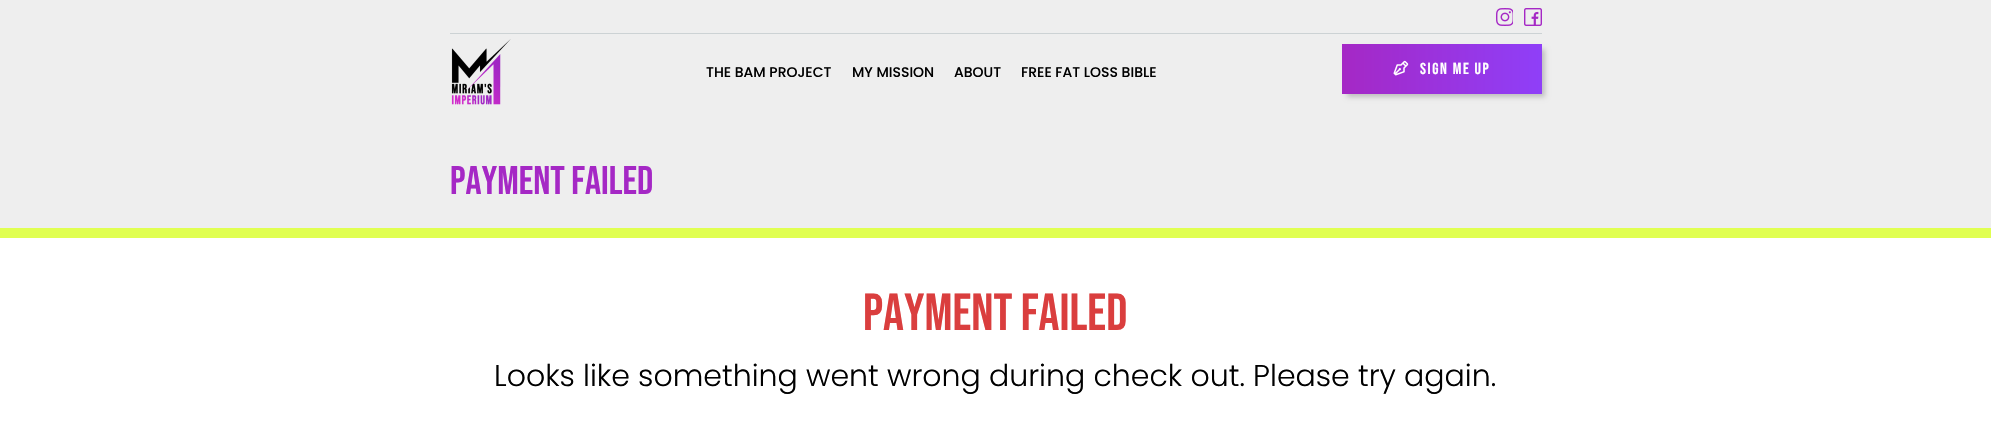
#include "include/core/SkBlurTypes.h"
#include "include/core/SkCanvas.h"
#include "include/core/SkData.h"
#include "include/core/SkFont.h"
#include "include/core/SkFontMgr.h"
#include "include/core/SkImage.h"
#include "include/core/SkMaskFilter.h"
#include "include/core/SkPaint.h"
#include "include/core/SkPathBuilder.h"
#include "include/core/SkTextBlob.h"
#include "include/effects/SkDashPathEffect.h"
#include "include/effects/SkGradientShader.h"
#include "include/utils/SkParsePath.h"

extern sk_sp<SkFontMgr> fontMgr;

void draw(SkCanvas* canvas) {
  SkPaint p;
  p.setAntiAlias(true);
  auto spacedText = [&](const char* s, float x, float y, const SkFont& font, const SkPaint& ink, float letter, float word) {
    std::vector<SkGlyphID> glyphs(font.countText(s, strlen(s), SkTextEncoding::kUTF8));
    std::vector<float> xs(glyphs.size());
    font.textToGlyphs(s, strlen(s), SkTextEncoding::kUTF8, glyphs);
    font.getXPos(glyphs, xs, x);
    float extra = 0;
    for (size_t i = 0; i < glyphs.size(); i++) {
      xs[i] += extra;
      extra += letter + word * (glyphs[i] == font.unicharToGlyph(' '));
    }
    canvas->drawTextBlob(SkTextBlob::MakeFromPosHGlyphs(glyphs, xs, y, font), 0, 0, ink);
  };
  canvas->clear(SK_ColorWHITE);
  p.setColor(SkColorSetRGB(238, 238, 238));
  canvas->drawRect(SkRect::MakeLTRB(0, 0, 1991, 228), p);
  p.setColor(SkColorSetRGB(204, 210, 212));
  canvas->drawRect(SkRect::MakeLTRB(450, 33, 1542, 34), p);
  canvas->drawImageRect(SkImages::DeferredFromEncodedData(SkData::MakeFromFileName("images/1.png")), SkRect::MakeLTRB(1496, 8, 1513, 26), SkSamplingOptions());
  canvas->drawImageRect(SkImages::DeferredFromEncodedData(SkData::MakeFromFileName("images/2.png")), SkRect::MakeLTRB(1524, 8, 1542, 26), SkSamplingOptions());
  canvas->drawImageRect(SkImages::DeferredFromEncodedData(SkData::MakeFromFileName("images/3.png")), SkRect::MakeLTRB(451, 39, 511, 105), SkSamplingOptions());
  p.setColor(SkColorSetARGB(51, 0, 0, 0));
  p.setMaskFilter(SkMaskFilter::MakeBlur(kNormal_SkBlurStyle, 2.5f));
  canvas->drawRect(SkRect::MakeLTRB(1347, 49, 1545, 97), p);
  p.setMaskFilter(nullptr);
  {
    const SkColor colors[] = {SkColorSetRGB(165, 40, 197), SkColorSetRGB(143, 63, 248)};
    const float stops[] = {0, 1};
    const SkPoint ends[] = {{1342, 69}, {1542, 69}};
    p.setShader(SkGradientShader::MakeLinear(ends, colors, stops, 2, SkTileMode::kClamp));
    p.setAlpha(255);
  }
  canvas->drawRect(SkRect::MakeLTRB(1342, 44, 1542, 94), p);
  canvas->drawImageRect(SkImages::DeferredFromEncodedData(SkData::MakeFromFileName("images/4.png")), SkRect::MakeLTRB(1393, 60, 1409, 76), SkSamplingOptions());
  p.setShader(nullptr);
  p.setColor(SkColorSetRGB(224, 255, 81));
  canvas->drawRect(SkRect::MakeLTRB(0, 228, 1991, 238), p);
  SkFont font1(fontMgr->matchFamilyStyle("Poppins", SkFontStyle(500, SkFontStyle::kNormal_Width, SkFontStyle::kUpright_Slant)), 14);
  font1.setSubpixel(true);
  p.setColor(SK_ColorBLACK);
  canvas->drawString("THE BAM PROJECT", 706, 77, font1, p);
  canvas->drawString("MY MISSION", 852, 77, font1, p);
  canvas->drawString("ABOUT", 954, 77, font1, p);
  canvas->drawString("FREE FAT LOSS BIBLE", 1021, 77, font1, p);
  SkFont font2(fontMgr->matchFamilyStyle("Bebas Neue", SkFontStyle::Normal()), 16);
  font2.setSubpixel(true);
  p.setColor(SK_ColorWHITE);
  spacedText("sign me up", 1420, 74, font2, p, 1.6f, 0);
  SkFont font3(fontMgr->matchFamilyStyle("Bebas Neue", SkFontStyle::Normal()), 40);
  font3.setSubpixel(true);
  p.setColor(SkColorSetRGB(165, 40, 197));
  canvas->drawString("Payment Failed", 450, 194, font3, p);
  SkFont font4(fontMgr->matchFamilyStyle("Bebas Neue", SkFontStyle::Normal()), 52);
  font4.setSubpixel(true);
  p.setColor(SkColorSetRGB(218, 62, 62));
  canvas->drawString("Payment Failed", 863, 330, font4, p);
  SkFont font5(fontMgr->matchFamilyStyle("Poppins", SkFontStyle(300, SkFontStyle::kNormal_Width, SkFontStyle::kUpright_Slant)), 30);
  font5.setSubpixel(true);
  p.setColor(SK_ColorBLACK);
  canvas->drawString("Looks like something went wrong during check out. Please try again.", 494, 386, font5, p);
}
